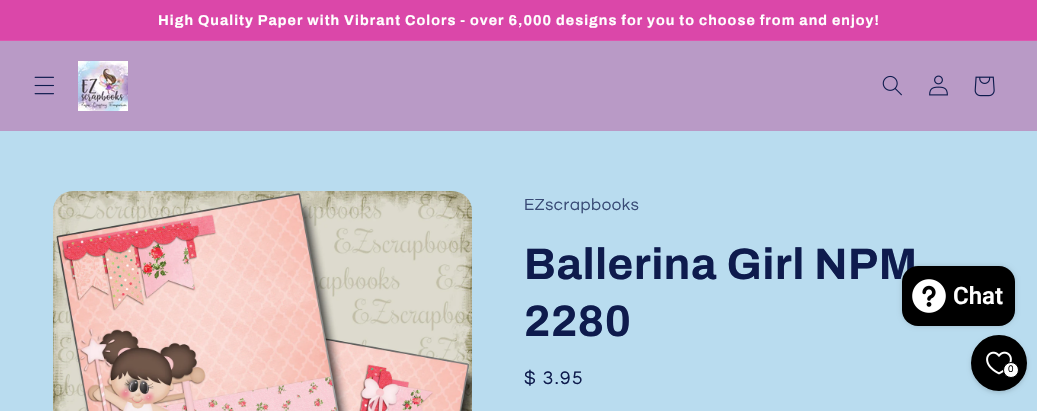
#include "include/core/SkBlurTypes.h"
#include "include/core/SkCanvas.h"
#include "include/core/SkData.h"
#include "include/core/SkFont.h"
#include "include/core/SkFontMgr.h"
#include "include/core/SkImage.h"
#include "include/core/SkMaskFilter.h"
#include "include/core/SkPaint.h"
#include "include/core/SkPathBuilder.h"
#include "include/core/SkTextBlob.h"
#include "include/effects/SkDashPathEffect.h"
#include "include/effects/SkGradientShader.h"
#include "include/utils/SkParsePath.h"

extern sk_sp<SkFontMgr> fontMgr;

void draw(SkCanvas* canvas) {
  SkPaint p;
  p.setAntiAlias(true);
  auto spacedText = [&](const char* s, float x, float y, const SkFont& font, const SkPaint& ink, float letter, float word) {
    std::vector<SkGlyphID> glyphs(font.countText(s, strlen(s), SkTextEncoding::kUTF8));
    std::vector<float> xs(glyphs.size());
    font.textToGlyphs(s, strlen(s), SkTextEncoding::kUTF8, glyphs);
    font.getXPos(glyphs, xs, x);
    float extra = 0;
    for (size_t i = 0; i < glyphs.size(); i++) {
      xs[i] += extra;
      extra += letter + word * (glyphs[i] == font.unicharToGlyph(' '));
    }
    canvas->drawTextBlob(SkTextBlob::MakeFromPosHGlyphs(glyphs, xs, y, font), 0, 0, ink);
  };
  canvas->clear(SkColorSetRGB(185, 220, 239));
  p.setColor(SkColorSetRGB(219, 71, 169));
  canvas->drawRect(SkRect::MakeLTRB(0, 0, 1037, 40), p);
  p.setColor(SkColorSetRGB(222, 86, 176));
  canvas->drawRect(SkRect::MakeLTRB(0, 40, 1037, 41), p);
  p.setColor(SkColorSetRGB(185, 154, 198));
  canvas->drawRect(SkRect::MakeLTRB(0, 41, 1037, 131), p);
  canvas->drawImageRect(SkImages::DeferredFromEncodedData(SkData::MakeFromFileName("images/1.png")), SkRect::MakeLTRB(34, 76, 54, 95), SkSamplingOptions());
  canvas->drawImageRect(SkImages::DeferredFromEncodedData(SkData::MakeFromFileName("images/2.png")), SkRect::MakeLTRB(78, 61, 128, 111), SkSamplingOptions());
  canvas->drawImageRect(SkImages::DeferredFromEncodedData(SkData::MakeFromFileName("images/3.png")), SkRect::MakeLTRB(882, 75, 902, 96), SkSamplingOptions());
  canvas->drawImageRect(SkImages::DeferredFromEncodedData(SkData::MakeFromFileName("images/4.png")), SkRect::MakeLTRB(929, 75, 948, 96), SkSamplingOptions());
  canvas->drawImageRect(SkImages::DeferredFromEncodedData(SkData::MakeFromFileName("images/5.png")), SkRect::MakeLTRB(974, 76, 995, 97), SkSamplingOptions());
  canvas->drawImageRect(SkImages::DeferredFromEncodedData(SkData::MakeFromFileName("images/6.png")), SkRect::MakeLTRB(53, 191, 472, 411), SkSamplingOptions());
  p.setColor(SkColorSetARGB(38, 0, 0, 0));
  p.setMaskFilter(SkMaskFilter::MakeBlur(kNormal_SkBlurStyle, 2.5f));
  canvas->drawRoundRect(SkRect::MakeLTRB(902, 266, 1015, 326), 16, 16, p);
  p.setMaskFilter(nullptr);
  p.setMaskFilter(SkMaskFilter::MakeBlur(kNormal_SkBlurStyle, 2));
  canvas->drawRoundRect(SkRect::MakeLTRB(971, 337, 1027, 393), 28, 28, p);
  p.setMaskFilter(nullptr);
  p.setColor(SK_ColorBLACK);
  canvas->drawCircle(999, 363, 27, p);
  p.setStyle(SkPaint::kStroke_Style);
  p.setStrokeWidth(2);
  canvas->drawCircle(999, 363, 27, p);
  canvas->drawImageRect(SkImages::DeferredFromEncodedData(SkData::MakeFromFileName("images/8.png")), SkRect::MakeLTRB(986, 351, 1012, 375), SkSamplingOptions());
  p.setStyle(SkPaint::kFill_Style);
  p.setColor(SK_ColorWHITE);
  canvas->drawCircle(1011, 370, 7.5f, p);
  p.setStyle(SkPaint::kStroke_Style);
  p.setStrokeWidth(1);
  p.setColor(SK_ColorBLACK);
  canvas->drawCircle(1011, 370, 7.5f, p);
  SkFont font1(fontMgr->matchFamilyStyle("Archivo", SkFontStyle::Bold()), 14.3f);
  font1.setSubpixel(true);
  p.setStyle(SkPaint::kFill_Style);
  p.setColor(SK_ColorWHITE);
  spacedText("High Quality Paper with Vibrant Colors - over 6,000 designs for you to choose from and enjoy!", 158, 25, font1, p, 1.05f, 0);
  SkFont font2(fontMgr->matchFamilyStyle("Questrial", SkFontStyle::Normal()), 16.75f);
  font2.setSubpixel(true);
  p.setColor(SkColorSetRGB(57, 75, 118));
  spacedText("EZscrapbooks", 524, 210, font2, p, 0.6f, 0);
  SkFont font3(fontMgr->matchFamilyStyle("Archivo", SkFontStyle::Bold()), 44);
  font3.setSubpixel(true);
  p.setColor(SkColorSetRGB(14, 27, 77));
  spacedText("Ballerina Girl NPM", 524, 279, font3, p, 0.7f, 0);
  spacedText("2280", 524, 336, font3, p, 0.7f, 0);
  SkFont font4(fontMgr->matchFamilyStyle("Questrial", SkFontStyle::Normal()), 19);
  font4.setSubpixel(true);
  spacedText("$ 3.95", 524, 384, font4, p, 1.5f, 0);
  p.setColor(SK_ColorBLACK);
  canvas->drawRoundRect(SkRect::MakeLTRB(902, 266, 1015, 326), 16, 16, p);
  canvas->drawImageRect(SkImages::DeferredFromEncodedData(SkData::MakeFromFileName("images/7.png")), SkRect::MakeLTRB(912, 279, 946, 313), SkSamplingOptions());
  SkFont font5(fontMgr->matchFamilyStyle("Roboto", SkFontStyle(600, SkFontStyle::kNormal_Width, SkFontStyle::kUpright_Slant)), 24);
  font5.setSubpixel(true);
  p.setColor(SK_ColorWHITE);
  canvas->drawString("Chat", 953, 304, font5, p);
  SkFont font6(fontMgr->matchFamilyStyle("Questrial", SkFontStyle::Normal()), 10);
  font6.setSubpixel(true);
  p.setColor(SK_ColorBLACK);
  spacedText("0", 1008, 372, font6, p, 0.6f, 0);
}
